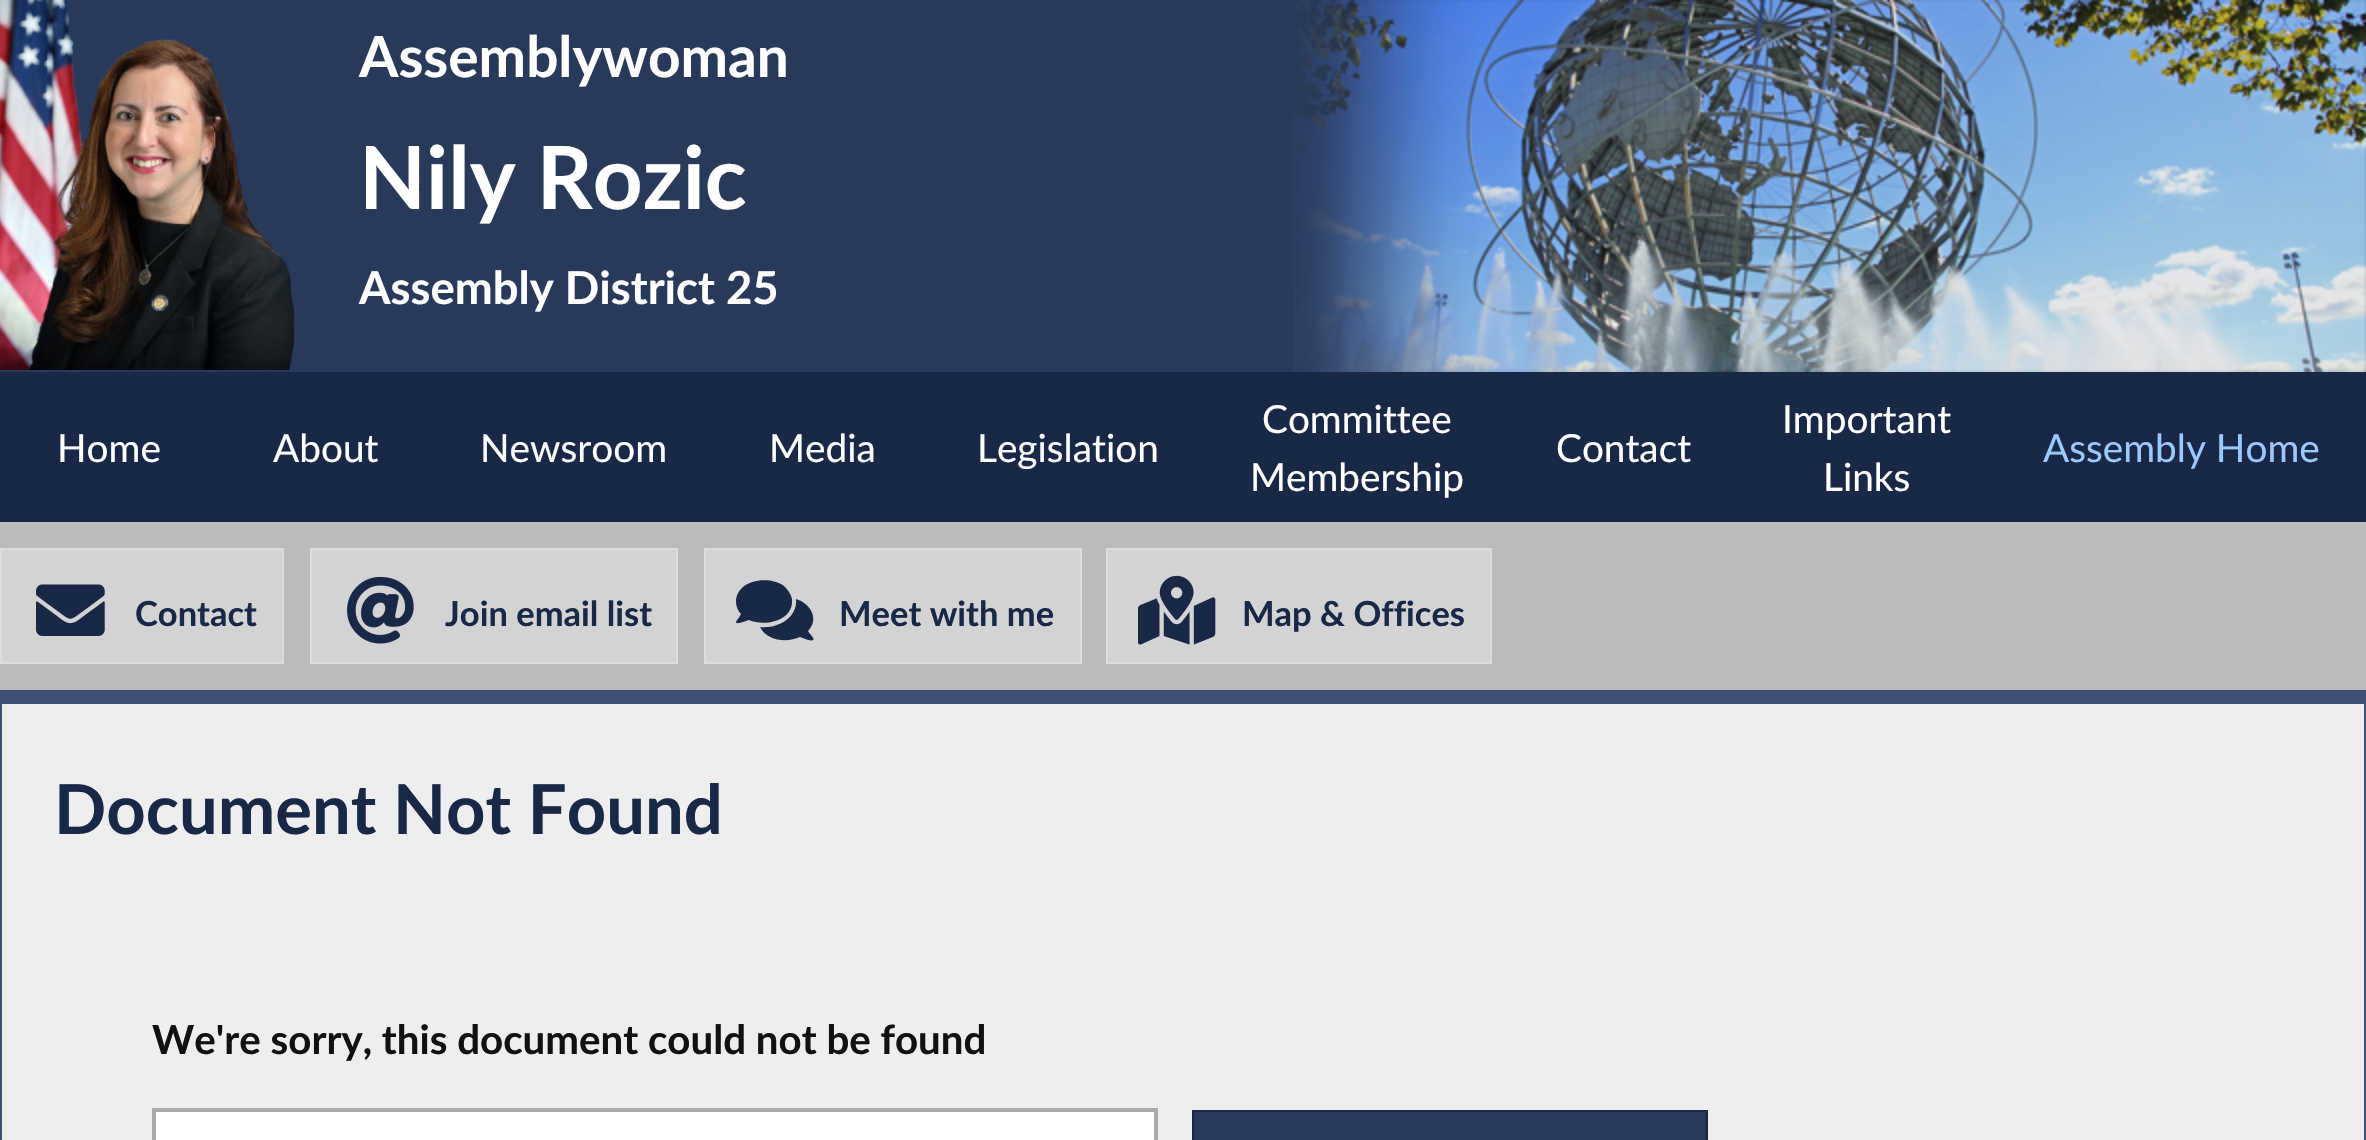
#include "include/core/SkBlurTypes.h"
#include "include/core/SkCanvas.h"
#include "include/core/SkData.h"
#include "include/core/SkFont.h"
#include "include/core/SkFontMgr.h"
#include "include/core/SkImage.h"
#include "include/core/SkMaskFilter.h"
#include "include/core/SkPaint.h"
#include "include/core/SkPathBuilder.h"
#include "include/core/SkTextBlob.h"
#include "include/effects/SkDashPathEffect.h"
#include "include/effects/SkGradientShader.h"
#include "include/utils/SkParsePath.h"

extern sk_sp<SkFontMgr> fontMgr;

void draw(SkCanvas* canvas) {
  SkPaint p;
  p.setAntiAlias(true);
  canvas->clear(SkColorSetRGB(187, 187, 187));
  p.setColor(SkColorSetRGB(41, 57, 90));
  canvas->drawRect(SkRect::MakeLTRB(0, 0, 2366, 372), p);
  canvas->drawImageRect(SkImages::DeferredFromEncodedData(SkData::MakeFromFileName("images/1.png")), SkRect::MakeLTRB(1293, 0, 2366, 372), SkSamplingOptions());
  canvas->drawImageRect(SkImages::DeferredFromEncodedData(SkData::MakeFromFileName("images/2.png")), SkRect::MakeLTRB(0, 0, 294, 370), SkSamplingOptions());
  p.setColor(SkColorSetRGB(25, 40, 71));
  canvas->drawRect(SkRect::MakeLTRB(0, 372, 2366, 522), p);
  p.setColor(SkColorSetRGB(211, 211, 211));
  canvas->drawRect(SkRect::MakeLTRB(1, 549, 283, 663), p);
  p.setStyle(SkPaint::kStroke_Style);
  p.setStrokeWidth(2);
  p.setColor(SkColorSetRGB(221, 221, 221));
  canvas->drawRect(SkRect::MakeLTRB(1, 549, 283, 663), p);
  canvas->drawImageRect(SkImages::DeferredFromEncodedData(SkData::MakeFromFileName("images/3.png")), SkRect::MakeLTRB(36, 584, 105, 636), SkSamplingOptions());
  p.setStyle(SkPaint::kFill_Style);
  p.setColor(SkColorSetRGB(211, 211, 211));
  canvas->drawRect(SkRect::MakeLTRB(311, 549, 677, 663), p);
  p.setStyle(SkPaint::kStroke_Style);
  p.setColor(SkColorSetRGB(221, 221, 221));
  canvas->drawRect(SkRect::MakeLTRB(311, 549, 677, 663), p);
  canvas->drawImageRect(SkImages::DeferredFromEncodedData(SkData::MakeFromFileName("images/4.png")), SkRect::MakeLTRB(347, 576, 414, 644), SkSamplingOptions());
  p.setStyle(SkPaint::kFill_Style);
  p.setColor(SkColorSetRGB(211, 211, 211));
  canvas->drawRect(SkRect::MakeLTRB(705, 549, 1081, 663), p);
  p.setStyle(SkPaint::kStroke_Style);
  p.setColor(SkColorSetRGB(221, 221, 221));
  canvas->drawRect(SkRect::MakeLTRB(705, 549, 1081, 663), p);
  p.setStyle(SkPaint::kFill_Style);
  p.setColor(SkColorSetRGB(25, 40, 71));
  canvas->drawPath(SkPathBuilder().moveTo(784, 586).cubicTo(788, 590, 791, 594, 792, 599).cubicTo(794, 621, 765, 627, 749, 620).lineTo(743, 622).cubicTo(730, 626, 739, 619, 741, 614).cubicTo(738, 611, 736, 606, 736, 602).cubicTo(736, 580, 769, 575, 784, 586).close().moveTo(808, 631).cubicTo(811, 636, 819, 642, 808, 640).lineTo(800, 637).cubicTo(787, 643, 767, 641, 760, 627).cubicTo(777, 629, 798, 618, 796, 599).cubicTo(810, 603, 820, 619, 808, 631).close().detach(), p);
  p.setColor(SkColorSetRGB(211, 211, 211));
  canvas->drawRect(SkRect::MakeLTRB(1107, 549, 1491, 663), p);
  p.setStyle(SkPaint::kStroke_Style);
  p.setColor(SkColorSetRGB(221, 221, 221));
  canvas->drawRect(SkRect::MakeLTRB(1107, 549, 1491, 663), p);
  canvas->drawImageRect(SkImages::DeferredFromEncodedData(SkData::MakeFromFileName("images/5.png")), SkRect::MakeLTRB(1138, 575, 1216, 645), SkSamplingOptions());
  p.setStyle(SkPaint::kFill_Style);
  p.setColor(SkColorSetRGB(238, 238, 238));
  canvas->drawRect(SkRect::MakeLTRB(2, 704, 2364, 1140), p);
  p.setColor(SkColorSetRGB(64, 81, 117));
  canvas->drawRect(SkRect::MakeLTRB(2, 690, 2364, 704), p);
  canvas->drawRect(SkRect::MakeLTRB(2364, 690, 2366, 1140), p);
  canvas->drawRect(SkRect::MakeLTRB(0, 690, 2, 1140), p);
  p.setColor(SK_ColorWHITE);
  canvas->drawRect(SkRect::MakeLTRB(154, 1110, 1156, 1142), p);
  p.setStyle(SkPaint::kStroke_Style);
  p.setStrokeWidth(4);
  p.setColor(SkColorSetRGB(170, 170, 170));
  canvas->drawRect(SkRect::MakeLTRB(154, 1110, 1156, 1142), p);
  p.setStyle(SkPaint::kFill_Style);
  p.setColor(SkColorSetRGB(41, 57, 90));
  canvas->drawRect(SkRect::MakeLTRB(1193, 1111, 1707, 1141), p);
  p.setStyle(SkPaint::kStroke_Style);
  p.setStrokeWidth(2);
  p.setColor(SkColorSetRGB(25, 40, 71));
  canvas->drawRect(SkRect::MakeLTRB(1193, 1111, 1707, 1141), p);
  SkFont font1(fontMgr->matchFamilyStyle("Lato", SkFontStyle::Bold()), 56.75f);
  font1.setSubpixel(true);
  p.setStyle(SkPaint::kFill_Style);
  p.setColor(SK_ColorWHITE);
  canvas->drawString("Assemblywoman", 359, 77, font1, p);
  SkFont font2(fontMgr->matchFamilyStyle("Lato", SkFontStyle::Bold()), 87);
  font2.setSubpixel(true);
  canvas->drawString("Nily Rozic", 359, 209, font2, p);
  SkFont font3(fontMgr->matchFamilyStyle("Lato", SkFontStyle::Bold()), 45.4f);
  font3.setSubpixel(true);
  canvas->drawString("Assembly District 25", 359, 304, font3, p);
  SkFont font4(fontMgr->matchFamilyStyle("Lato", SkFontStyle::Normal()), 38.75f);
  font4.setSubpixel(true);
  canvas->drawString("Home", 57, 462, font4, p);
  canvas->drawString("About", 273, 462, font4, p);
  canvas->drawString("Newsroom", 480, 462, font4, p);
  canvas->drawString("Media", 769, 462, font4, p);
  canvas->drawString("Legislation", 977, 462, font4, p);
  canvas->drawString("Committee", 1262, 433, font4, p);
  canvas->drawString("Membership", 1250, 491, font4, p);
  canvas->drawString("Contact", 1556, 462, font4, p);
  canvas->drawString("Important", 1782, 433, font4, p);
  canvas->drawString("Links", 1823, 491, font4, p);
  p.setColor(SkColorSetRGB(155, 201, 255));
  canvas->drawString("Assembly Home", 2043, 462, font4, p);
  SkFont font5(fontMgr->matchFamilyStyle("Lato", SkFontStyle::Bold()), 34.5f);
  font5.setSubpixel(true);
  p.setColor(SkColorSetRGB(25, 40, 71));
  canvas->drawString("Contact", 135, 626, font5, p);
  canvas->drawString("Join email list", 445, 626, font5, p);
  canvas->drawString("Meet with me", 839, 626, font5, p);
  canvas->drawString("Map & Offices", 1242, 626, font5, p);
  SkFont font6(fontMgr->matchFamilyStyle("Lato", SkFontStyle::Bold()), 68.75f);
  font6.setSubpixel(true);
  canvas->drawString("Document Not Found", 54, 834, font6, p);
  SkFont font7(fontMgr->matchFamilyStyle("Lato", SkFontStyle::Bold()), 40.25f);
  font7.setSubpixel(true);
  p.setColor(SkColorSetRGB(17, 17, 17));
  canvas->drawString("We're sorry, this document could not be found", 152, 1054, font7, p);
}
